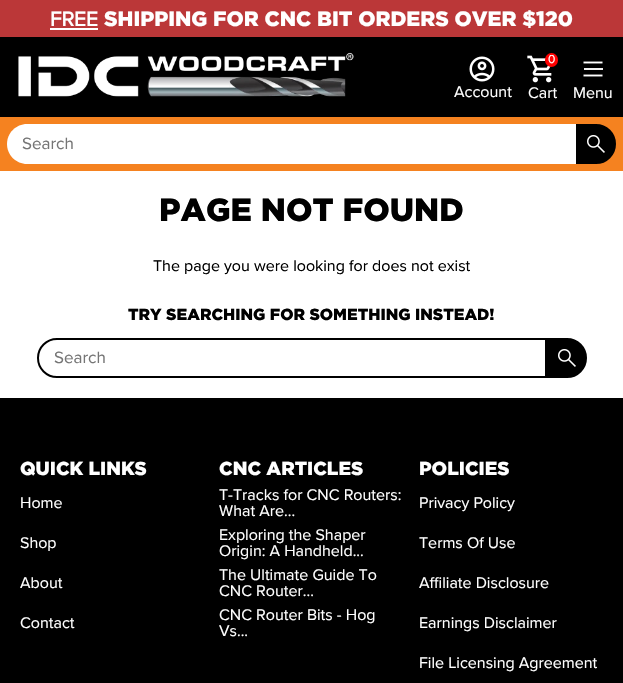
#include "include/core/SkBlurTypes.h"
#include "include/core/SkCanvas.h"
#include "include/core/SkData.h"
#include "include/core/SkFont.h"
#include "include/core/SkFontMgr.h"
#include "include/core/SkImage.h"
#include "include/core/SkMaskFilter.h"
#include "include/core/SkPaint.h"
#include "include/core/SkPathBuilder.h"
#include "include/core/SkTextBlob.h"
#include "include/effects/SkDashPathEffect.h"
#include "include/effects/SkGradientShader.h"
#include "include/utils/SkParsePath.h"

extern sk_sp<SkFontMgr> fontMgr;

void draw(SkCanvas* canvas) {
  SkPaint p;
  p.setAntiAlias(true);
  canvas->clear(SK_ColorWHITE);
  p.setColor(SkColorSetRGB(187, 55, 56));
  canvas->drawRect(SkRect::MakeLTRB(0, 0, 623, 37), p);
  p.setColor(SK_ColorWHITE);
  canvas->drawRect(SkRect::MakeLTRB(50, 28, 98, 30), p);
  p.setColor(SK_ColorBLACK);
  canvas->drawRect(SkRect::MakeLTRB(0, 37, 623, 117), p);
  canvas->drawImageRect(SkImages::DeferredFromEncodedData(SkData::MakeFromFileName("images/1.png")), SkRect::MakeLTRB(18, 52, 354, 97), SkSamplingOptions());
  canvas->drawImageRect(SkImages::DeferredFromEncodedData(SkData::MakeFromFileName("images/2.png")), SkRect::MakeLTRB(469, 56, 495, 82), SkSamplingOptions());
  canvas->drawImageRect(SkImages::DeferredFromEncodedData(SkData::MakeFromFileName("images/3.png")), SkRect::MakeLTRB(527, 55, 552, 83), SkSamplingOptions());
  p.setColor(SkColorSetRGB(255, 0, 0));
  canvas->drawRoundRect(SkRect::MakeLTRB(545, 53, 558, 67), 6.5f, 6.5f, p);
  p.setStyle(SkPaint::kStroke_Style);
  p.setStrokeWidth(1.9f);
  p.setColor(SK_ColorWHITE);
  canvas->drawPath(SkPathBuilder().moveTo(583.5f, 62.5f).lineTo(602.5f, 62.5f).detach(), p);
  p.setStyle(SkPaint::kFill_Style);
  p.setColor(SkColorSetRGB(242, 242, 242));
  canvas->drawRect(SkRect::MakeLTRB(584, 68, 603, 70), p);
  p.setStyle(SkPaint::kStroke_Style);
  p.setColor(SK_ColorWHITE);
  canvas->drawPath(SkPathBuilder().moveTo(583.5f, 75.5f).lineTo(602.5f, 75.5f).detach(), p);
  p.setStyle(SkPaint::kFill_Style);
  p.setColor(SkColorSetRGB(245, 130, 32));
  canvas->drawRect(SkRect::MakeLTRB(0, 117, 623, 171), p);
  p.setColor(SK_ColorWHITE);
  canvas->drawPath(SkPathBuilder().moveTo(27, 124).lineTo(576, 124).lineTo(576, 164).lineTo(27, 164).cubicTo(16, 164, 7, 155, 7, 144).cubicTo(7, 133, 16, 124, 27, 124).close().detach(), p);
  p.setColor(SK_ColorBLACK);
  canvas->drawPath(SkPathBuilder().moveTo(577, 125).lineTo(596, 125).cubicTo(606.5f, 125, 615, 133.5f, 615, 144).cubicTo(615, 154.5f, 606.5f, 163, 596, 163).lineTo(577, 163).close().detach(), p);
  p.setStyle(SkPaint::kStroke_Style);
  p.setStrokeWidth(2);
  canvas->drawPath(SkPathBuilder().moveTo(577, 125).lineTo(596, 125).cubicTo(606.5f, 125, 615, 133.5f, 615, 144).cubicTo(615, 154.5f, 606.5f, 163, 596, 163).lineTo(577, 163).close().detach(), p);
  canvas->drawImageRect(SkImages::DeferredFromEncodedData(SkData::MakeFromFileName("images/4.png")), SkRect::MakeLTRB(587, 135, 605, 153), SkSamplingOptions());
  canvas->drawPath(SkPathBuilder().moveTo(57, 339).lineTo(546, 339).lineTo(546, 377).lineTo(57, 377).cubicTo(46.5f, 377, 38, 368.5f, 38, 358).cubicTo(38, 347.5f, 46.5f, 339, 57, 339).close().detach(), p);
  p.setStyle(SkPaint::kFill_Style);
  canvas->drawPath(SkPathBuilder().moveTo(548, 339).lineTo(567, 339).cubicTo(577.5f, 339, 586, 347.5f, 586, 358).cubicTo(586, 368.5f, 577.5f, 377, 567, 377).lineTo(548, 377).close().detach(), p);
  p.setStyle(SkPaint::kStroke_Style);
  canvas->drawPath(SkPathBuilder().moveTo(548, 339).lineTo(567, 339).cubicTo(577.5f, 339, 586, 347.5f, 586, 358).cubicTo(586, 368.5f, 577.5f, 377, 567, 377).lineTo(548, 377).close().detach(), p);
  canvas->drawImageRect(SkImages::DeferredFromEncodedData(SkData::MakeFromFileName("images/4.png")), SkRect::MakeLTRB(558, 349, 576, 367), SkSamplingOptions());
  p.setStyle(SkPaint::kFill_Style);
  canvas->drawRect(SkRect::MakeLTRB(0, 398, 623, 683), p);
  SkFont font1(fontMgr->matchFamilyStyle("Proxima Nova", SkFontStyle::Bold()), 20.8f);
  font1.setSubpixel(true);
  p.setColor(SK_ColorWHITE);
  canvas->drawString("FREE", 50, 26, font1, p);
  SkFont font2(fontMgr->matchFamilyStyle("Gotham", SkFontStyle(900, SkFontStyle::kNormal_Width, SkFontStyle::kUpright_Slant)), 20.8f);
  font2.setSubpixel(true);
  canvas->drawString("SHIPPING FOR CNC BIT ORDERS OVER $120", 104, 26, font2, p);
  SkFont font3(fontMgr->matchFamilyStyle("Proxima Nova", SkFontStyle::Normal()), 16);
  font3.setSubpixel(true);
  canvas->drawString("Account", 454, 97, font3, p);
  SkFont font4(fontMgr->matchFamilyStyle("Proxima Nova", SkFontStyle::Normal()), 12);
  font4.setSubpixel(true);
  canvas->drawString("0", 548, 63, font4, p);
  canvas->drawString("Cart", 528, 98, font3, p);
  canvas->drawString("Menu", 573, 98, font3, p);
  SkFont font5(fontMgr->matchFamilyStyle("Proxima Nova", SkFontStyle::Normal()), 17);
  font5.setSubpixel(true);
  p.setColor(SkColorSetRGB(117, 117, 117));
  canvas->drawString("Search", 22, 149, font5, p);
  SkFont font6(fontMgr->matchFamilyStyle("Gotham", SkFontStyle(900, SkFontStyle::kNormal_Width, SkFontStyle::kUpright_Slant)), 32);
  font6.setSubpixel(true);
  p.setColor(SK_ColorBLACK);
  canvas->drawString("PAGE NOT FOUND", 159, 221, font6, p);
  canvas->drawString("The page you were looking for does not exist", 153, 271, font3, p);
  SkFont font7(fontMgr->matchFamilyStyle("Gotham", SkFontStyle(900, SkFontStyle::kNormal_Width, SkFontStyle::kUpright_Slant)), 16);
  font7.setSubpixel(true);
  canvas->drawString("TRY SEARCHING FOR SOMETHING INSTEAD!", 128, 320, font7, p);
  p.setColor(SkColorSetRGB(117, 117, 117));
  canvas->drawString("Search", 54, 363, font5, p);
  SkFont font8(fontMgr->matchFamilyStyle("Gotham", SkFontStyle(900, SkFontStyle::kNormal_Width, SkFontStyle::kUpright_Slant)), 18.75f);
  font8.setSubpixel(true);
  p.setColor(SK_ColorWHITE);
  canvas->drawString("QUICK LINKS", 20, 475, font8, p);
  canvas->drawString("Home", 20, 508, font3, p);
  canvas->drawString("Shop", 20, 548, font3, p);
  canvas->drawString("About", 20, 588, font3, p);
  canvas->drawString("Contact", 20, 628, font3, p);
  canvas->drawString("CNC ARTICLES", 219, 475, font8, p);
  canvas->drawString("T-Tracks for CNC Routers:", 219, 500, font3, p);
  canvas->drawString("What Are...", 219, 516, font3, p);
  canvas->drawString("Exploring the Shaper", 219, 540, font3, p);
  canvas->drawString("Origin: A Handheld...", 219, 556, font3, p);
  canvas->drawString("The Ultimate Guide To", 219, 580, font3, p);
  canvas->drawString("CNC Router...", 219, 596, font3, p);
  canvas->drawString("CNC Router Bits - Hog", 219, 620, font3, p);
  canvas->drawString("Vs...", 219, 636, font3, p);
  canvas->drawString("POLICIES", 419, 475, font8, p);
  canvas->drawString("Privacy Policy", 419, 508, font3, p);
  canvas->drawString("Terms Of Use", 419, 548, font3, p);
  canvas->drawString("Affiliate Disclosure", 419, 588, font3, p);
  canvas->drawString("Earnings Disclaimer", 419, 628, font3, p);
  canvas->drawString("File Licensing Agreement", 419, 668, font3, p);
}
